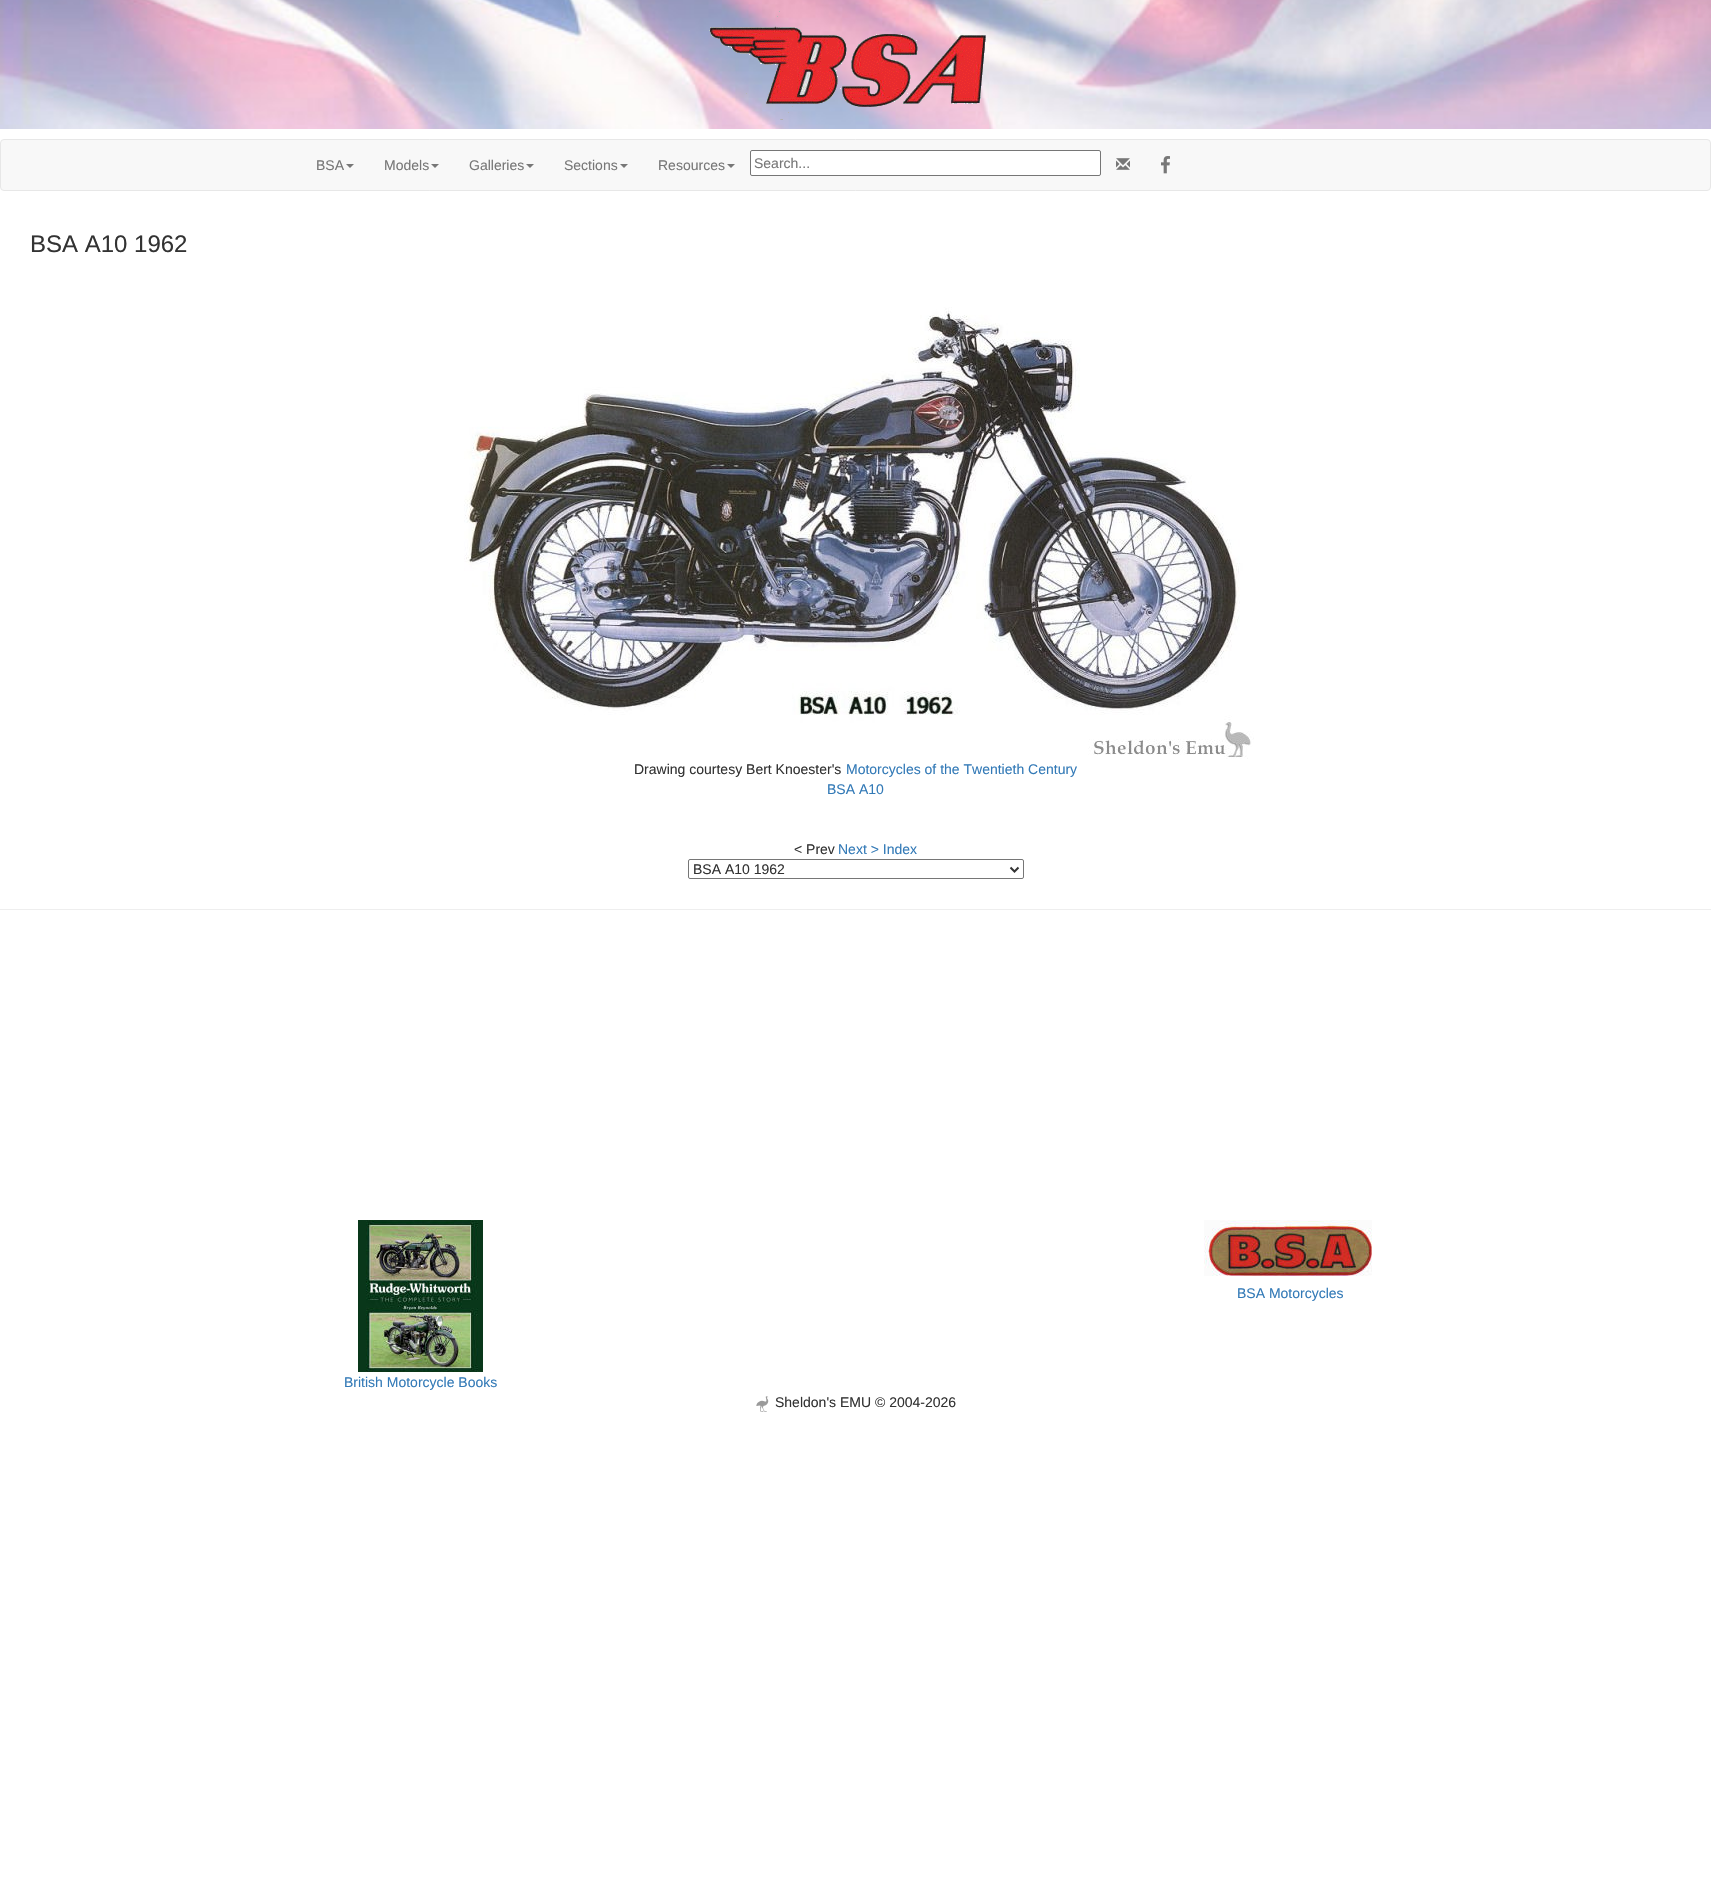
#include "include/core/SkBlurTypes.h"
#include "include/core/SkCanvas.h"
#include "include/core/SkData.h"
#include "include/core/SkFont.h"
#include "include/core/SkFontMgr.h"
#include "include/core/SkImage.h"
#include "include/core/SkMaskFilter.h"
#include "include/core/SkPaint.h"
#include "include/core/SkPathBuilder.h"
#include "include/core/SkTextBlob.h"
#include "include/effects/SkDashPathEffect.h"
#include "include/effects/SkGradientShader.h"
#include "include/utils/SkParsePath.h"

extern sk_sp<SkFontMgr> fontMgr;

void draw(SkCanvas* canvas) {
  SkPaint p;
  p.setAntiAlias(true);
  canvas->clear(SK_ColorWHITE);
  canvas->drawImageRect(SkImages::DeferredFromEncodedData(SkData::MakeFromFileName("images/1.png")), SkRect::MakeLTRB(0, 0, 1711, 129), SkSamplingOptions());
  canvas->drawImageRect(SkImages::DeferredFromEncodedData(SkData::MakeFromFileName("images/2.png")), SkRect::MakeLTRB(709, 11, 986, 120), SkSamplingOptions());
  p.setColor(SkColorSetRGB(248, 248, 248));
  canvas->drawRoundRect(SkRect::MakeLTRB(0.5f, 139.5f, 1710.5f, 190.5f), 3.5f, 3.5f, p);
  p.setStyle(SkPaint::kStroke_Style);
  p.setStrokeWidth(1);
  p.setColor(SkColorSetRGB(231, 231, 231));
  canvas->drawRoundRect(SkRect::MakeLTRB(0.5f, 139.5f, 1710.5f, 190.5f), 3.5f, 3.5f, p);
  p.setStyle(SkPaint::kFill_Style);
  p.setColor(SkColorSetRGB(119, 119, 119));
  canvas->drawPath(SkPathBuilder().moveTo(346, 164).lineTo(354, 164).lineTo(350, 168).close().detach(), p);
  canvas->drawPath(SkPathBuilder().moveTo(431, 164).lineTo(439, 164).lineTo(435, 168).close().detach(), p);
  canvas->drawPath(SkPathBuilder().moveTo(526, 164).lineTo(534, 164).lineTo(530, 168).close().detach(), p);
  canvas->drawPath(SkPathBuilder().moveTo(620, 164).lineTo(628, 164).lineTo(624, 168).close().detach(), p);
  canvas->drawPath(SkPathBuilder().moveTo(727, 164).lineTo(735, 164).lineTo(731, 168).close().detach(), p);
  p.setColor(SK_ColorWHITE);
  canvas->drawRoundRect(SkRect::MakeLTRB(750.5f, 150.5f, 1100.5f, 175.5f), 1.5f, 1.5f, p);
  p.setStyle(SkPaint::kStroke_Style);
  p.setColor(SkColorSetRGB(118, 118, 118));
  canvas->drawRoundRect(SkRect::MakeLTRB(750.5f, 150.5f, 1100.5f, 175.5f), 1.5f, 1.5f, p);
  canvas->drawImageRect(SkImages::DeferredFromEncodedData(SkData::MakeFromFileName("images/3.png")), SkRect::MakeLTRB(1116, 158, 1130, 170), SkSamplingOptions());
  canvas->drawImageRect(SkImages::DeferredFromEncodedData(SkData::MakeFromFileName("images/4.png")), SkRect::MakeLTRB(1161, 156, 1170, 174), SkSamplingOptions());
  canvas->drawImageRect(SkImages::DeferredFromEncodedData(SkData::MakeFromFileName("images/5.png")), SkRect::MakeLTRB(464, 307, 1254, 759), SkSamplingOptions());
  canvas->drawRoundRect(SkRect::MakeLTRB(688.5f, 859.5f, 1023.5f, 878.5f), 1.5f, 1.5f, p);
  p.setStrokeWidth(2);
  p.setColor(SkColorSetRGB(51, 51, 51));
  canvas->drawPath(SkPathBuilder().moveTo(1010.5f, 867.5f).lineTo(1014.5f, 871.5f).lineTo(1018.5f, 867.5f).detach(), p);
  p.setStyle(SkPaint::kFill_Style);
  p.setColor(SkColorSetRGB(238, 238, 238));
  canvas->drawRect(SkRect::MakeLTRB(0, 909, 1711, 910), p);
  canvas->drawImageRect(SkImages::DeferredFromEncodedData(SkData::MakeFromFileName("images/6.png")), SkRect::MakeLTRB(1204, 1220, 1372, 1276), SkSamplingOptions());
  canvas->drawImageRect(SkImages::DeferredFromEncodedData(SkData::MakeFromFileName("images/7.png")), SkRect::MakeLTRB(358, 1220, 483, 1372), SkSamplingOptions());
  canvas->drawImageRect(SkImages::DeferredFromEncodedData(SkData::MakeFromFileName("images/8.png")), SkRect::MakeLTRB(756, 1396, 769, 1412), SkSamplingOptions());
  SkFont font1(fontMgr->matchFamilyStyle("Liberation Sans", SkFontStyle::Normal()), 14);
  font1.setSubpixel(true);
  p.setColor(SkColorSetRGB(119, 119, 119));
  canvas->drawString("BSA", 316, 170, font1, p);
  canvas->drawString("Models", 384, 170, font1, p);
  canvas->drawString("Galleries", 469, 170, font1, p);
  canvas->drawString("Sections", 564, 170, font1, p);
  canvas->drawString("Resources", 658, 170, font1, p);
  canvas->drawString("Search...", 754, 168, font1, p);
  SkFont font2(fontMgr->matchFamilyStyle("Liberation Sans", SkFontStyle::Normal()), 24);
  font2.setSubpixel(true);
  p.setColor(SkColorSetRGB(51, 51, 51));
  canvas->drawString("BSA A10 1962", 30, 252, font2, p);
  canvas->drawString("Drawing courtesy Bert Knoester's", 634, 774, font1, p);
  p.setColor(SkColorSetRGB(51, 122, 183));
  canvas->drawString("Motorcycles of the Twentieth Century", 846, 774, font1, p);
  canvas->drawString("BSA A10", 827, 794, font1, p);
  p.setColor(SkColorSetRGB(51, 51, 51));
  canvas->drawString("< Prev", 794, 854, font1, p);
  p.setColor(SkColorSetRGB(51, 122, 183));
  canvas->drawString("Next > Index", 838, 854, font1, p);
  p.setColor(SkColorSetRGB(51, 51, 51));
  canvas->drawString("BSA A10 1962", 693, 874, font1, p);
  p.setColor(SkColorSetRGB(51, 122, 183));
  canvas->drawString("BSA Motorcycles", 1237, 1298, font1, p);
  canvas->drawString("British Motorcycle Books", 344, 1387, font1, p);
  p.setColor(SkColorSetRGB(51, 51, 51));
  canvas->drawString("Sheldon's EMU © 2004-2026", 775, 1407, font1, p);
}
